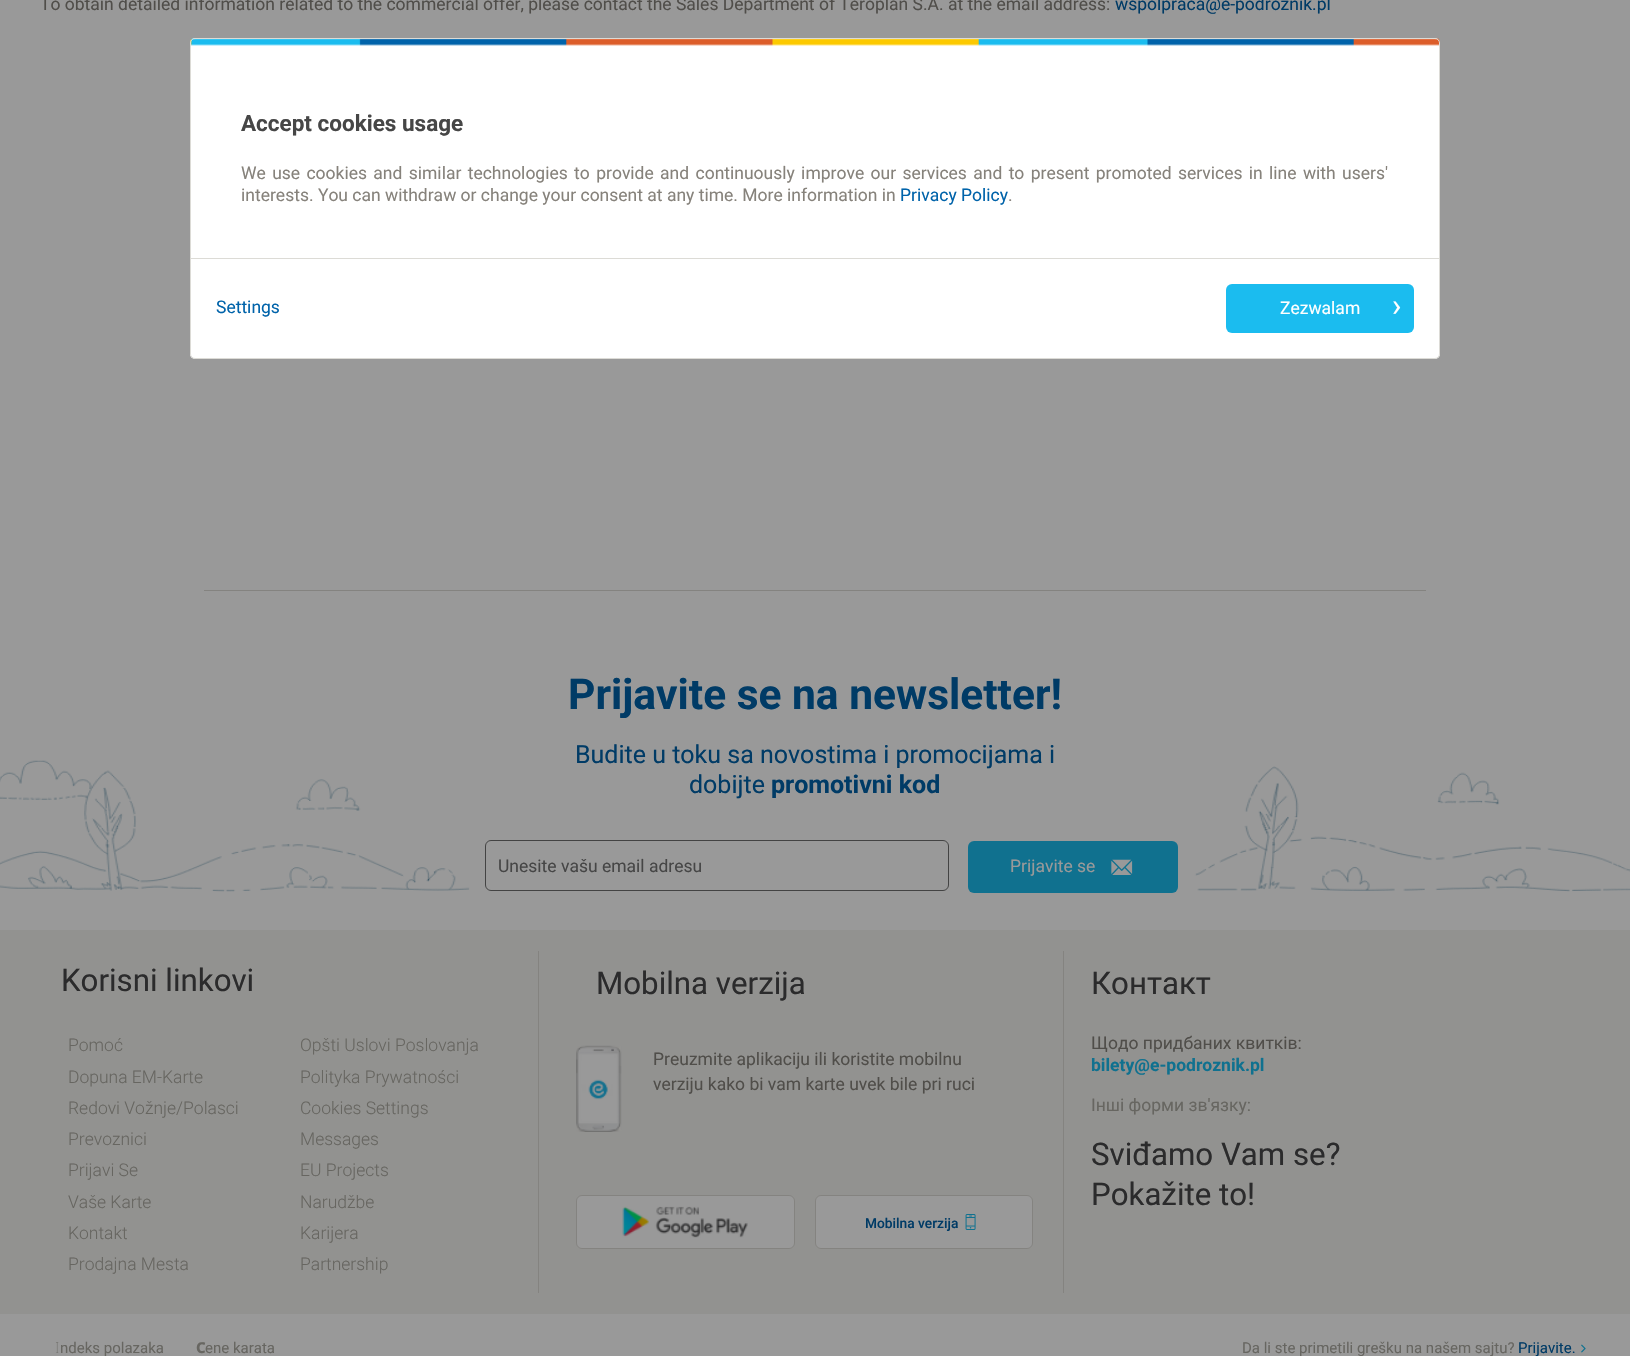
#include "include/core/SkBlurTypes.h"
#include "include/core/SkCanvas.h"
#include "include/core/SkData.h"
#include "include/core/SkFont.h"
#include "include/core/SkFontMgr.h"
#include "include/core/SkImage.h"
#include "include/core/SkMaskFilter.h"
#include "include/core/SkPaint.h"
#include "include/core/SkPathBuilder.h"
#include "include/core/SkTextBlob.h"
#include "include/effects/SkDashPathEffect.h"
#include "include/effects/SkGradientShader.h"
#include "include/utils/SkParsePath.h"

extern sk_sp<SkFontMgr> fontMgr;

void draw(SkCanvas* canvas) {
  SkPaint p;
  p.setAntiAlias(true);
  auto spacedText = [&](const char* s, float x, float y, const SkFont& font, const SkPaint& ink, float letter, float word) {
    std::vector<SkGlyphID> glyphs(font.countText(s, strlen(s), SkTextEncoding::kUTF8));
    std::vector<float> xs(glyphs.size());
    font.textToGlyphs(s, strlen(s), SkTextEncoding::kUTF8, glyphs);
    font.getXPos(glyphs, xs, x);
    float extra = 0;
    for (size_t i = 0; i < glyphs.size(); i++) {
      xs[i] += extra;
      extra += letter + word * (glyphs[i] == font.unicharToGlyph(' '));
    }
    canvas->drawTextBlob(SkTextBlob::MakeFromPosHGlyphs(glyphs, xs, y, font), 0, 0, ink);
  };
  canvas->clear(SkColorSetRGB(153, 153, 153));
  p.setColor(SkColorSetRGB(132, 131, 128));
  canvas->drawRect(SkRect::MakeLTRB(204, 590, 1426, 591), p);
  canvas->drawImageRect(SkImages::DeferredFromEncodedData(SkData::MakeFromFileName("images/1.png")), SkRect::MakeLTRB(0, 760, 1630, 892), SkSamplingOptions());
  p.setStyle(SkPaint::kStroke_Style);
  p.setStrokeWidth(1);
  p.setColor(SkColorSetRGB(67, 67, 67));
  canvas->drawRoundRect(SkRect::MakeLTRB(485.5f, 840.5f, 948.5f, 890.5f), 5.5f, 5.5f, p);
  p.setStyle(SkPaint::kFill_Style);
  p.setColor(SkColorSetRGB(16, 113, 143));
  canvas->drawRoundRect(SkRect::MakeLTRB(968, 841, 1178, 893), 6, 6, p);
  canvas->drawImageRect(SkImages::DeferredFromEncodedData(SkData::MakeFromFileName("images/2.png")), SkRect::MakeLTRB(1111, 859, 1133, 875), SkSamplingOptions());
  p.setColor(SkColorSetRGB(146, 146, 144));
  canvas->drawRect(SkRect::MakeLTRB(0, 930, 1630, 1314), p);
  p.setColor(SkColorSetRGB(132, 131, 128));
  canvas->drawRect(SkRect::MakeLTRB(538, 951, 539, 1293), p);
  canvas->drawRect(SkRect::MakeLTRB(1063, 951, 1064, 1293), p);
  canvas->drawImageRect(SkImages::DeferredFromEncodedData(SkData::MakeFromFileName("images/3.png")), SkRect::MakeLTRB(576, 1045, 622, 1132), SkSamplingOptions());
  p.setColor(SkColorSetRGB(153, 153, 153));
  canvas->drawRoundRect(SkRect::MakeLTRB(576.5f, 1195.5f, 794.5f, 1248.5f), 5.5f, 5.5f, p);
  p.setStyle(SkPaint::kStroke_Style);
  p.setColor(SkColorSetRGB(132, 131, 128));
  canvas->drawRoundRect(SkRect::MakeLTRB(576.5f, 1195.5f, 794.5f, 1248.5f), 5.5f, 5.5f, p);
  canvas->drawImageRect(SkImages::DeferredFromEncodedData(SkData::MakeFromFileName("images/4.png")), SkRect::MakeLTRB(622, 1206, 748, 1238), SkSamplingOptions());
  p.setStyle(SkPaint::kFill_Style);
  p.setColor(SkColorSetRGB(153, 153, 153));
  canvas->drawRoundRect(SkRect::MakeLTRB(815.5f, 1195.5f, 1032.5f, 1248.5f), 5.5f, 5.5f, p);
  p.setStyle(SkPaint::kStroke_Style);
  p.setColor(SkColorSetRGB(132, 131, 128));
  canvas->drawRoundRect(SkRect::MakeLTRB(815.5f, 1195.5f, 1032.5f, 1248.5f), 5.5f, 5.5f, p);
  canvas->drawImageRect(SkImages::DeferredFromEncodedData(SkData::MakeFromFileName("images/5.png")), SkRect::MakeLTRB(965, 1214, 976, 1230), SkSamplingOptions());
  canvas->drawImageRect(SkImages::DeferredFromEncodedData(SkData::MakeFromFileName("images/6.png")), SkRect::MakeLTRB(1581, 1344, 1586, 1353), SkSamplingOptions());
  p.setStyle(SkPaint::kFill_Style);
  p.setColor(SK_ColorWHITE);
  canvas->drawRoundRect(SkRect::MakeLTRB(190, 38, 1440, 359), 5, 5, p);
  canvas->drawImageRect(SkImages::DeferredFromEncodedData(SkData::MakeFromFileName("images/7.png")), SkRect::MakeLTRB(190, 38, 1440, 46), SkSamplingOptions());
  p.setStyle(SkPaint::kStroke_Style);
  p.setColor(SkColorSetRGB(220, 219, 214));
  canvas->drawRoundRect(SkRect::MakeLTRB(190.5f, 38.5f, 1439.5f, 358.5f), 4.5f, 4.5f, p);
  p.setStyle(SkPaint::kFill_Style);
  canvas->drawRect(SkRect::MakeLTRB(191, 258, 1439, 259), p);
  p.setColor(SkColorSetRGB(27, 188, 239));
  canvas->drawRoundRect(SkRect::MakeLTRB(1226, 284, 1414, 333), 6, 6, p);
  SkFont font1(fontMgr->matchFamilyStyle("Roboto", SkFontStyle::Normal()), 17.5f);
  font1.setSubpixel(true);
  p.setColor(SkColorSetRGB(80, 78, 74));
  canvas->drawString("To obtain detailed information related to the commercial offer, please contact the Sales Department of Teroplan S.A. at the email address:", 40, 10, font1, p);
  p.setColor(SkColorSetRGB(0, 59, 102));
  canvas->drawString("wspolpraca@e-podroznik.pl", 1115, 10, font1, p);
  SkFont font2(fontMgr->matchFamilyStyle("Roboto", SkFontStyle::Bold()), 42.5f);
  font2.setSubpixel(true);
  canvas->drawString("Prijavite se na newsletter!", 568, 709, font2, p);
  SkFont font3(fontMgr->matchFamilyStyle("Roboto", SkFontStyle::Normal()), 25);
  font3.setSubpixel(true);
  canvas->drawString("Budite u toku sa novostima i promocijama i", 575, 763, font3, p);
  canvas->drawString("dobijte", 689, 793, font3, p);
  SkFont font4(fontMgr->matchFamilyStyle("Roboto", SkFontStyle::Bold()), 25);
  font4.setSubpixel(true);
  canvas->drawString("promotivni kod", 771, 793, font4, p);
  p.setColor(SkColorSetRGB(70, 70, 70));
  canvas->drawString("Unesite vašu email adresu", 498, 872, font1, p);
  p.setColor(SkColorSetRGB(153, 153, 153));
  canvas->drawString("Prijavite se", 1010, 872, font1, p);
  SkFont font5(fontMgr->matchFamilyStyle("Roboto", SkFontStyle::Normal()), 31.25f);
  font5.setSubpixel(true);
  p.setColor(SkColorSetRGB(43, 43, 44));
  canvas->drawString("Korisni linkovi", 61, 991, font5, p);
  SkFont font6(fontMgr->matchFamilyStyle("Roboto", SkFontStyle(300, SkFontStyle::kNormal_Width, SkFontStyle::kUpright_Slant)), 17.5f);
  font6.setSubpixel(true);
  p.setColor(SkColorSetRGB(103, 102, 97));
  canvas->drawString("Pomoć", 68, 1051, font6, p);
  canvas->drawString("Opšti Uslovi Poslovanja", 300, 1051, font6, p);
  canvas->drawString("Dopuna EM-Karte", 68, 1083, font6, p);
  canvas->drawString("Polityka Prywatności", 300, 1083, font6, p);
  canvas->drawString("Redovi Vožnje/Polasci", 68, 1114, font6, p);
  canvas->drawString("Cookies Settings", 300, 1114, font6, p);
  canvas->drawString("Prevoznici", 68, 1145, font6, p);
  canvas->drawString("Messages", 300, 1145, font6, p);
  canvas->drawString("Prijavi Se", 68, 1176, font6, p);
  canvas->drawString("EU Projects", 300, 1176, font6, p);
  canvas->drawString("Vaše Karte", 68, 1208, font6, p);
  canvas->drawString("Narudžbe", 300, 1208, font6, p);
  canvas->drawString("Kontakt", 68, 1239, font6, p);
  canvas->drawString("Karijera", 300, 1239, font6, p);
  canvas->drawString("Prodajna Mesta", 68, 1270, font6, p);
  canvas->drawString("Partnership", 300, 1270, font6, p);
  p.setColor(SkColorSetRGB(43, 43, 44));
  canvas->drawString("Mobilna verzija", 596, 994, font5, p);
  p.setColor(SkColorSetRGB(80, 78, 74));
  canvas->drawString("Preuzmite aplikaciju ili koristite mobilnu", 653, 1065, font1, p);
  canvas->drawString("verziju kako bi vam karte uvek bile pri ruci", 653, 1090, font1, p);
  SkFont font7(fontMgr->matchFamilyStyle("Roboto", SkFontStyle(500, SkFontStyle::kNormal_Width, SkFontStyle::kUpright_Slant)), 13.75f);
  font7.setSubpixel(true);
  p.setColor(SkColorSetRGB(0, 59, 102));
  canvas->drawString("Mobilna verzija", 865, 1228, font7, p);
  p.setColor(SkColorSetRGB(43, 43, 44));
  canvas->drawString("Контакт", 1091, 994, font5, p);
  p.setColor(SkColorSetRGB(80, 78, 74));
  canvas->drawString("Щодо придбаних квитків:", 1091, 1049, font1, p);
  SkFont font8(fontMgr->matchFamilyStyle("Roboto", SkFontStyle::Bold()), 17.5f);
  font8.setSubpixel(true);
  p.setColor(SkColorSetRGB(16, 113, 143));
  canvas->drawString("bilety@e-podroznik.pl", 1091, 1071, font8, p);
  p.setColor(SkColorSetRGB(103, 102, 97));
  canvas->drawString("Інші форми зв'язку:", 1091, 1111, font1, p);
  p.setColor(SkColorSetRGB(43, 43, 44));
  canvas->drawString("Sviđamo Vam se?", 1091, 1165, font5, p);
  canvas->drawString("Pokažite to!", 1091, 1205, font5, p);
  SkFont font9(fontMgr->matchFamilyStyle("Noto Sans", SkFontStyle(100, SkFontStyle::kNormal_Width, SkFontStyle::kUpright_Slant)), 15);
  font9.setSubpixel(true);
  p.setColor(SkColorSetRGB(103, 102, 97));
  canvas->drawString("I", 55, 1353, font9, p);
  SkFont font10(fontMgr->matchFamilyStyle("Roboto", SkFontStyle::Normal()), 15);
  font10.setSubpixel(true);
  canvas->drawString("ndeks polazaka", 60, 1353, font10, p);
  SkFont font11(fontMgr->matchFamilyStyle("Noto Sans", SkFontStyle(800, SkFontStyle::kNormal_Width, SkFontStyle::kUpright_Slant)), 15);
  font11.setSubpixel(true);
  canvas->drawString("C", 196, 1353, font11, p);
  canvas->drawString("ene karata", 205, 1353, font10, p);
  canvas->drawString("Da li ste primetili grešku na našem sajtu?", 1242, 1353, font10, p);
  p.setColor(SkColorSetRGB(0, 59, 102));
  canvas->drawString("Prijavite.", 1518, 1353, font10, p);
  SkFont font12(fontMgr->matchFamilyStyle("Roboto", SkFontStyle::Bold()), 22.5f);
  font12.setSubpixel(true);
  p.setColor(SkColorSetRGB(70, 70, 70));
  canvas->drawString("Accept cookies usage", 241, 131, font12, p);
  p.setColor(SkColorSetRGB(134, 130, 123));
  spacedText("We use cookies and similar technologies to provide and continuously improve our services and to present promoted services in line with users'", 241, 179, font1, p, 0, 2);
  canvas->drawString("interests. You can withdraw or change your consent at any time. More information in", 241, 201, font1, p);
  p.setColor(SkColorSetRGB(0, 99, 170));
  canvas->drawString("Privacy Policy", 900, 201, font1, p);
  p.setColor(SkColorSetRGB(134, 130, 123));
  canvas->drawString(".", 1008, 201, font1, p);
  p.setColor(SkColorSetRGB(0, 99, 170));
  canvas->drawString("Settings", 216, 313, font1, p);
  p.setColor(SK_ColorWHITE);
  canvas->drawString("Zezwalam", 1280, 314, font1, p);
  canvas->drawString("›", 1392, 316, font5, p);
}
